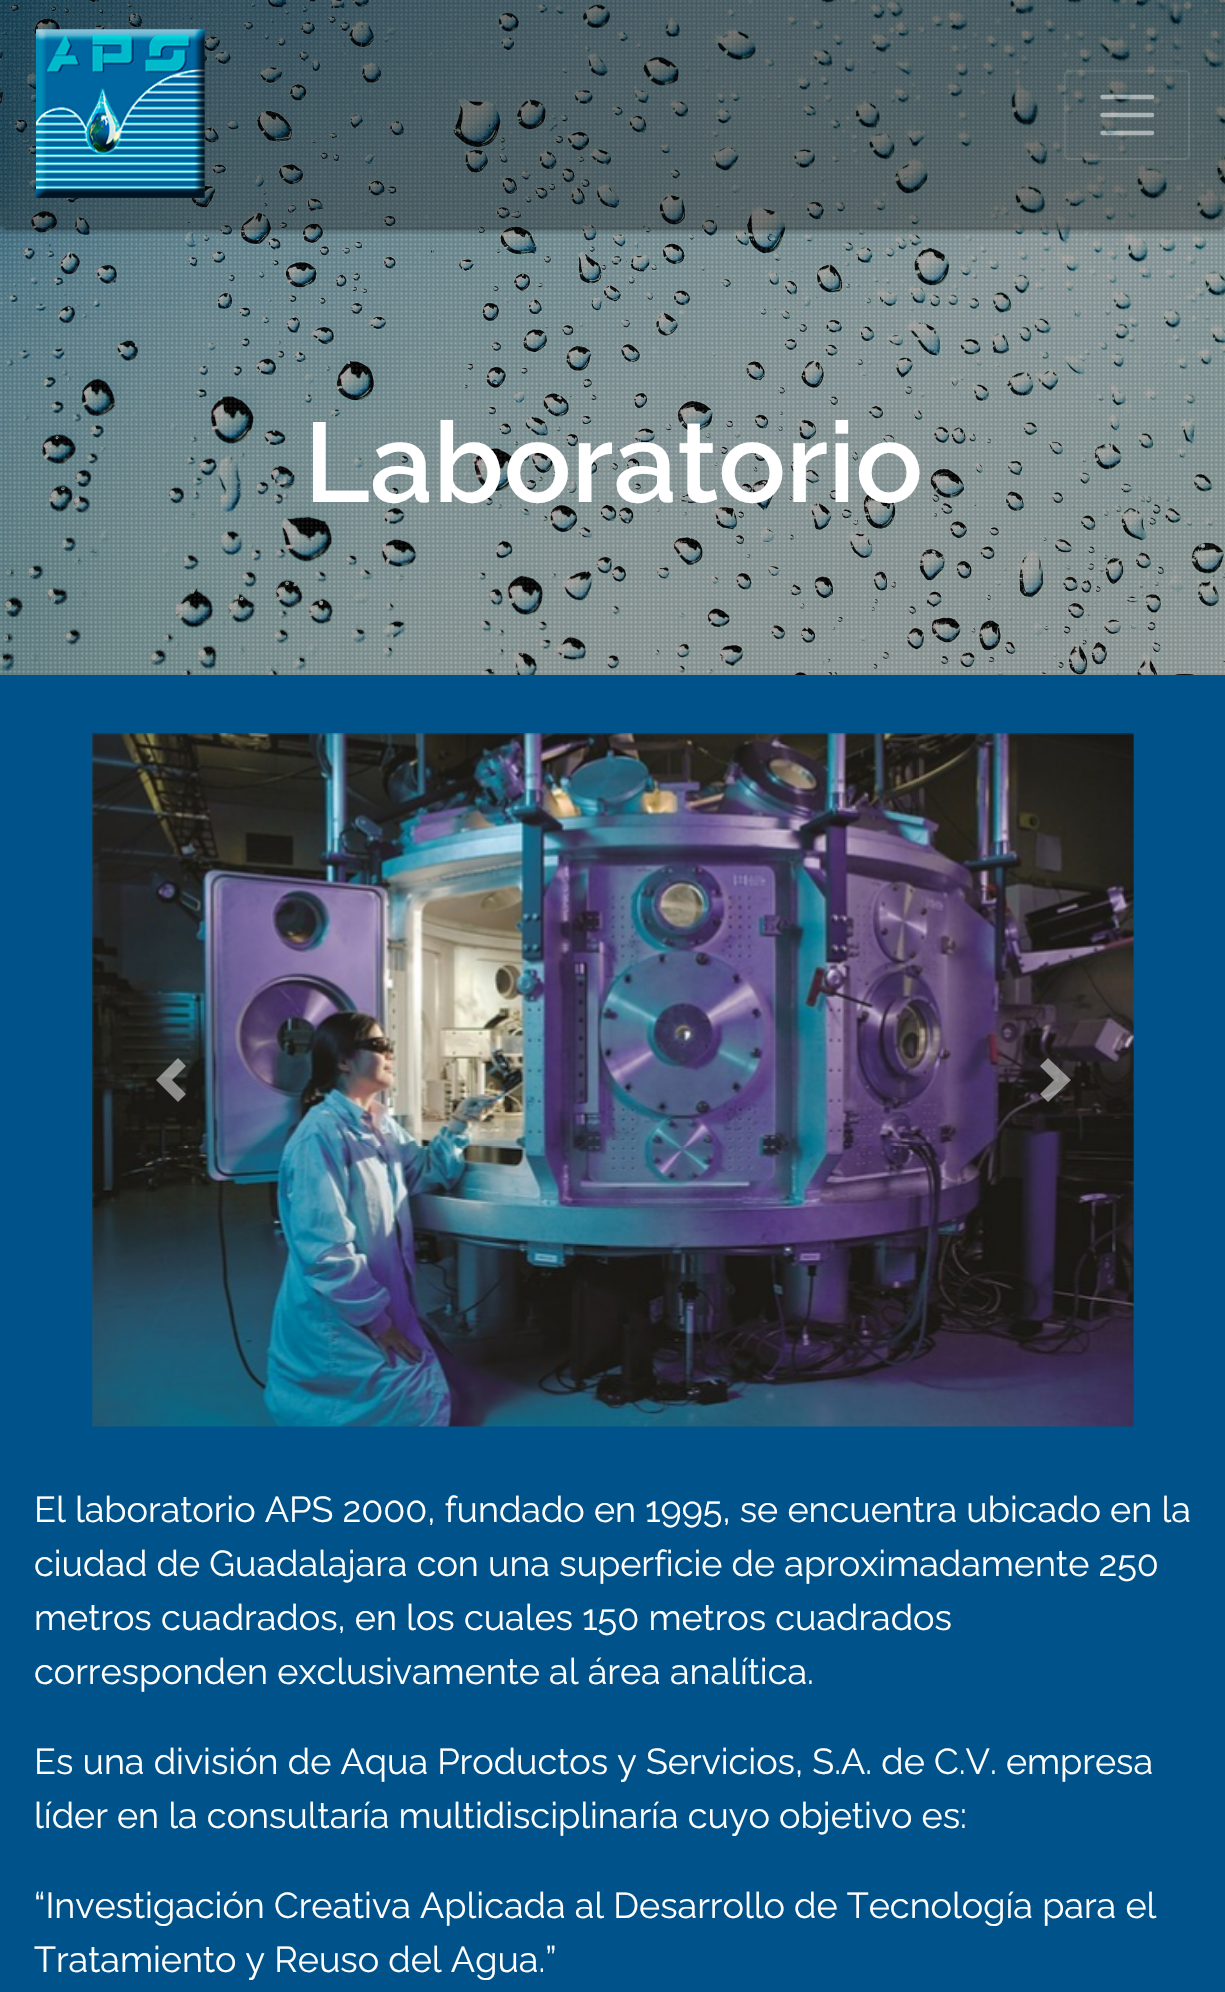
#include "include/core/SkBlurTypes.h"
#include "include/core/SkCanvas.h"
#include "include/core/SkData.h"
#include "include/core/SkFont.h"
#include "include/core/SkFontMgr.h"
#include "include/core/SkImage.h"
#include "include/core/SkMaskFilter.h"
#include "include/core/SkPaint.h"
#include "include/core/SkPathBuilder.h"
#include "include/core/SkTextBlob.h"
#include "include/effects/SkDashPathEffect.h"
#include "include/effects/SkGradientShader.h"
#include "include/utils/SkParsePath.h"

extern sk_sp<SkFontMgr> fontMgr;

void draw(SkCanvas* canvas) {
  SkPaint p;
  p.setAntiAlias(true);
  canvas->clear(SkColorSetRGB(0, 82, 138));
  canvas->drawImageRect(SkImages::DeferredFromEncodedData(SkData::MakeFromFileName("images/1.png")), SkRect::MakeLTRB(0, 0, 1225, 675), SkSamplingOptions());
  canvas->drawImageRect(SkImages::DeferredFromEncodedData(SkData::MakeFromFileName("images/2.png")), SkRect::MakeLTRB(0, 0, 1225, 675), SkSamplingOptions());
  canvas->save();
  canvas->clipRect(SkRect::MakeLTRB(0, 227, 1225, 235));
  p.setColor(SkColorSetARGB(31, 0, 0, 0));
  p.setMaskFilter(SkMaskFilter::MakeBlur(kNormal_SkBlurStyle, 5.5f));
  canvas->drawRect(SkRect::MakeLTRB(0, 2, 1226, 230), p);
  p.setMaskFilter(nullptr);
  canvas->restore();
  canvas->save();
  canvas->clipRect(SkRect::MakeLTRB(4, 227, 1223, 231));
  p.setColor(SkColorSetARGB(51, 0, 0, 0));
  p.setMaskFilter(SkMaskFilter::MakeBlur(kNormal_SkBlurStyle, 1));
  canvas->drawRect(SkRect::MakeLTRB(5, 11, 1222, 230), p);
  p.setMaskFilter(nullptr);
  canvas->restore();
  canvas->save();
  canvas->clipRect(SkRect::MakeLTRB(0, 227, 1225, 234));
  p.setColor(SkColorSetARGB(36, 0, 0, 0));
  p.setMaskFilter(SkMaskFilter::MakeBlur(kNormal_SkBlurStyle, 2));
  canvas->drawRect(SkRect::MakeLTRB(0, 5, 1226, 232), p);
  p.setMaskFilter(nullptr);
  canvas->restore();
  p.setColor(SkColorSetARGB(77, 0, 0, 0));
  canvas->drawRect(SkRect::MakeLTRB(0, 0, 1225, 227), p);
  canvas->drawImageRect(SkImages::DeferredFromEncodedData(SkData::MakeFromFileName("images/3.png")), SkRect::MakeLTRB(36, 29, 205, 198), SkSamplingOptions());
  p.setStyle(SkPaint::kStroke_Style);
  p.setStrokeWidth(2);
  p.setColor(SkColorSetARGB(26, 255, 255, 255));
  canvas->drawRoundRect(SkRect::MakeLTRB(1065, 71, 1189, 159), 4, 4, p);
  p.setStrokeWidth(4.5f);
  p.setStrokeCap(SkPaint::kRound_Cap);
  p.setColor(SkColorSetARGB(128, 255, 255, 255));
  canvas->drawPath(SkPathBuilder().moveTo(1102.5f, 97).lineTo(1152, 97).moveTo(1102.5f, 115).lineTo(1152, 115).moveTo(1102.5f, 133).lineTo(1152, 133).detach(), p);
  canvas->drawImageRect(SkImages::DeferredFromEncodedData(SkData::MakeFromFileName("images/4.png")), SkRect::MakeLTRB(92, 733, 1134, 1427), SkSamplingOptions());
  p.setStyle(SkPaint::kFill_Style);
  canvas->drawPath(SkPathBuilder().moveTo(178, 1058).lineTo(156, 1080).lineTo(178, 1102).lineTo(186, 1094).lineTo(172, 1080).lineTo(186, 1066).close().detach(), p);
  canvas->drawPath(SkPathBuilder().moveTo(1048, 1058).lineTo(1040, 1066).lineTo(1054, 1080).lineTo(1040, 1094).lineTo(1048, 1102).lineTo(1071, 1080).close().detach(), p);
  SkFont font1(fontMgr->matchFamilyStyle("Raleway", SkFontStyle(600, SkFontStyle::kNormal_Width, SkFontStyle::kUpright_Slant)), 112.5f);
  font1.setSubpixel(true);
  p.setColor(SK_ColorWHITE);
  canvas->drawString("Laboratorio", 304, 502, font1, p);
  SkFont font2(fontMgr->matchFamilyStyle("Raleway", SkFontStyle::Normal()), 36);
  font2.setSubpixel(true);
  canvas->drawString("El laboratorio APS 2000, fundado en 1995, se encuentra ubicado en la", 34, 1522, font2, p);
  canvas->drawString("ciudad de Guadalajara con una superficie de aproximadamente 250", 34, 1576, font2, p);
  canvas->drawString("metros cuadrados, en los cuales 150 metros cuadrados", 34, 1630, font2, p);
  canvas->drawString("corresponden exclusivamente al área analítica.", 34, 1684, font2, p);
  canvas->drawString("Es una división de Aqua Productos y Servicios, S.A. de C.V. empresa", 34, 1774, font2, p);
  canvas->drawString("líder en la consultaría multidisciplinaría cuyo objetivo es:", 34, 1828, font2, p);
  canvas->drawString("“Investigación Creativa Aplicada al Desarrollo de Tecnología para el", 34, 1918, font2, p);
  canvas->drawString("Tratamiento y Reuso del Agua.”", 34, 1972, font2, p);
}
